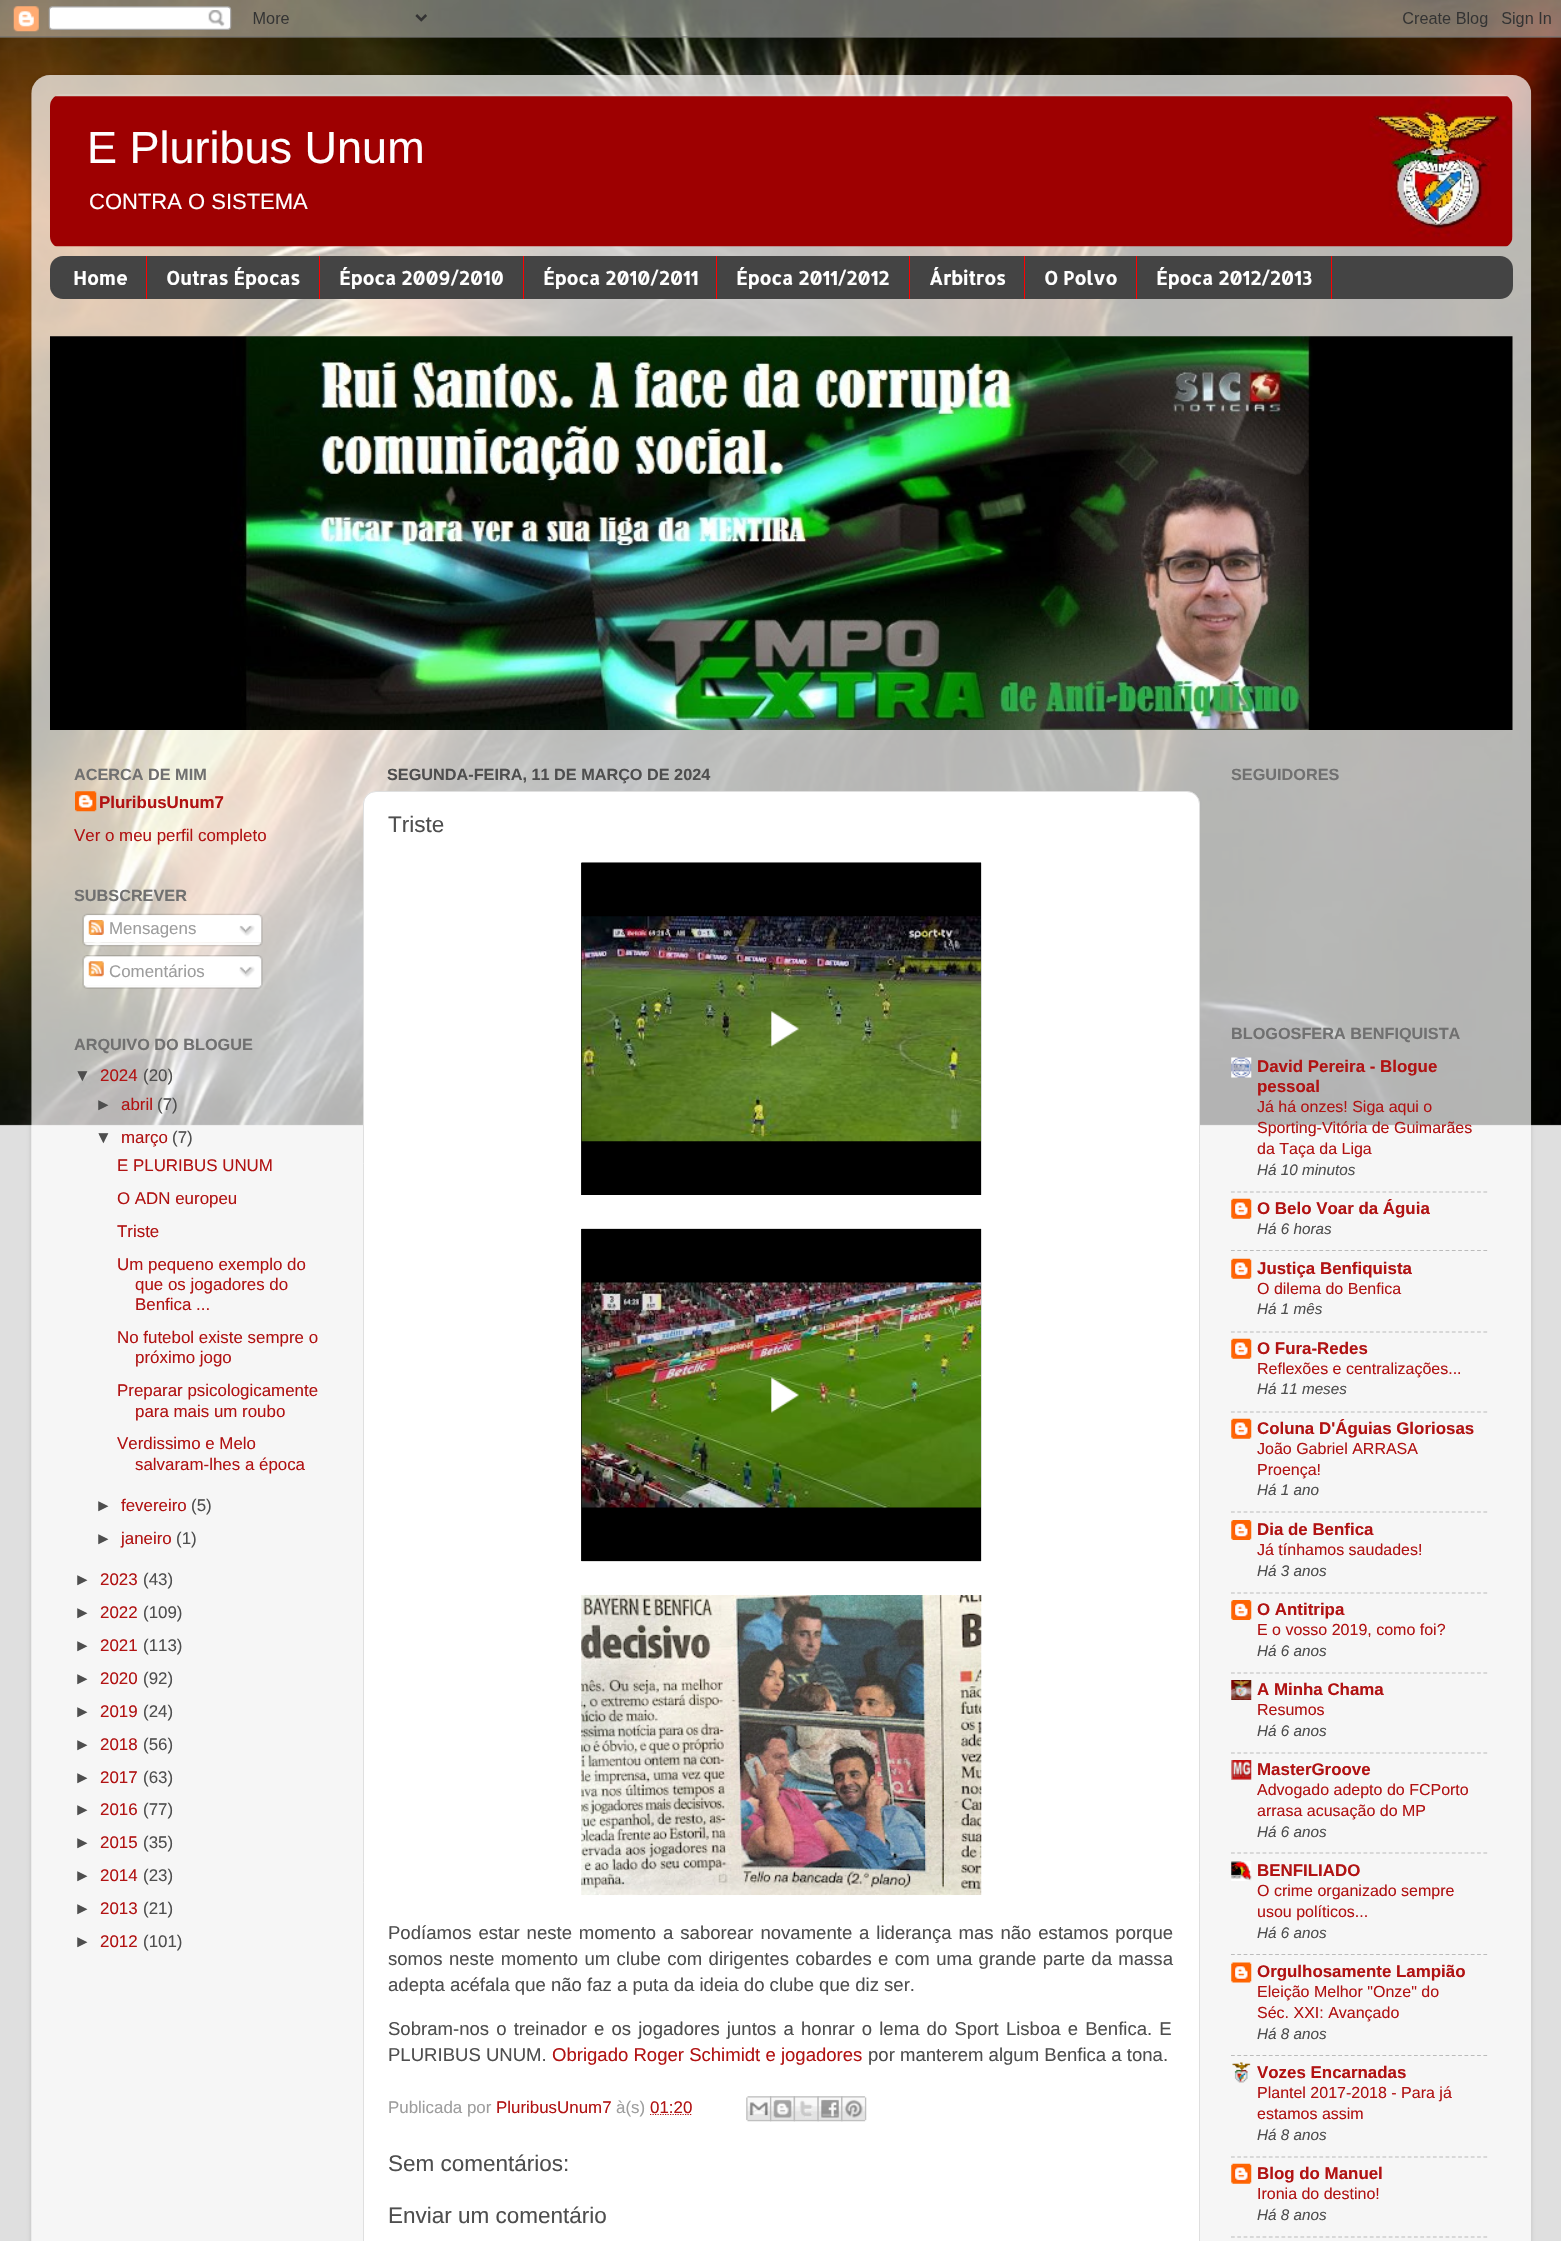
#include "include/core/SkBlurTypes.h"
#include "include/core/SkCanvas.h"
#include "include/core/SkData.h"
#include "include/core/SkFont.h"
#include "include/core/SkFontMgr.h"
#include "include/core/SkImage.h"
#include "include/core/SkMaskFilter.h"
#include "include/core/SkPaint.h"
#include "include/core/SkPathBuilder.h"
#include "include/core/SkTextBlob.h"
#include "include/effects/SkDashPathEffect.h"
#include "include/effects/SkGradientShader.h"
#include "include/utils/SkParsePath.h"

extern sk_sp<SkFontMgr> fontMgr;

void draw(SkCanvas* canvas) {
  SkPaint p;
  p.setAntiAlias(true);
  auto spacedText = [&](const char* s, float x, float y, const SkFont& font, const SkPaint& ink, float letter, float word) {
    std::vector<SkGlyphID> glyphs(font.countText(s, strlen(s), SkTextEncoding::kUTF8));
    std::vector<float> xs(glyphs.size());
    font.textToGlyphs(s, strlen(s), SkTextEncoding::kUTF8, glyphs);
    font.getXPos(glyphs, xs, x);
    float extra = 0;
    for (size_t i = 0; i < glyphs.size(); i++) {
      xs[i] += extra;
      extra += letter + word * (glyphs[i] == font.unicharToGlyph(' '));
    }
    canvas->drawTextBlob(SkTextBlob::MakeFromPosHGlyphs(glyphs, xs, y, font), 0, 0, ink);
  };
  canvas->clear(SkColorSetRGB(223, 223, 223));
  canvas->drawImageRect(SkImages::DeferredFromEncodedData(SkData::MakeFromFileName("images/1.png")), SkRect::MakeLTRB(0, 0, 1561, 1126), SkSamplingOptions());
  canvas->drawImageRect(SkImages::DeferredFromEncodedData(SkData::MakeFromFileName("images/2.png")), SkRect::MakeLTRB(0, 0, 1561, 38), SkSamplingOptions());
  canvas->save();
  canvas->clipPath(SkPathBuilder(SkPathFillType::kEvenOdd).moveTo(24, 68).lineTo(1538, 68).lineTo(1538, 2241).lineTo(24, 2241).close().moveTo(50, 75).lineTo(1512, 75).cubicTo(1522.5f, 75, 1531, 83.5f, 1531, 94).lineTo(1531, 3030).cubicTo(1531, 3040.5f, 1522.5f, 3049, 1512, 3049).lineTo(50, 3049).cubicTo(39.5f, 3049, 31, 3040.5f, 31, 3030).lineTo(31, 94).cubicTo(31, 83.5f, 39.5f, 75, 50, 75).close().detach(), true);
  p.setColor(SkColorSetARGB(38, 0, 0, 0));
  p.setMaskFilter(SkMaskFilter::MakeBlur(kNormal_SkBlurStyle, 2));
  canvas->drawRoundRect(SkRect::MakeLTRB(31, 75, 1531, 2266), 19, 19, p);
  p.setMaskFilter(nullptr);
  canvas->restore();
  canvas->drawImageRect(SkImages::DeferredFromEncodedData(SkData::MakeFromFileName("images/3.png")), SkRect::MakeLTRB(31, 75, 1532, 2241), SkSamplingOptions());
  canvas->drawImageRect(SkImages::DeferredFromEncodedData(SkData::MakeFromFileName("images/4.png")), SkRect::MakeLTRB(50, 94, 1512, 106), SkSamplingOptions());
  canvas->drawImageRect(SkImages::DeferredFromEncodedData(SkData::MakeFromFileName("images/5.png")), SkRect::MakeLTRB(50, 96, 1513, 247), SkSamplingOptions());
  p.setColor(SkColorSetRGB(68, 68, 68));
  canvas->drawRoundRect(SkRect::MakeLTRB(50, 256, 1513, 299), 13, 13, p);
  canvas->drawImageRect(SkImages::DeferredFromEncodedData(SkData::MakeFromFileName("images/6.png")), SkRect::MakeLTRB(50, 288, 54, 295), SkSamplingOptions());
  p.setColor(SkColorSetRGB(255, 0, 0));
  canvas->drawRect(SkRect::MakeLTRB(146, 256, 147, 299), p);
  canvas->drawRect(SkRect::MakeLTRB(319, 256, 320, 299), p);
  canvas->drawRect(SkRect::MakeLTRB(523, 256, 524, 299), p);
  canvas->drawRect(SkRect::MakeLTRB(716, 256, 717, 299), p);
  canvas->drawRect(SkRect::MakeLTRB(909, 256, 910, 299), p);
  canvas->drawRect(SkRect::MakeLTRB(1024, 256, 1025, 299), p);
  canvas->drawRect(SkRect::MakeLTRB(1136, 256, 1137, 299), p);
  canvas->drawRect(SkRect::MakeLTRB(1331, 256, 1332, 299), p);
  canvas->drawImageRect(SkImages::DeferredFromEncodedData(SkData::MakeFromFileName("images/7.png")), SkRect::MakeLTRB(50, 336, 1513, 730), SkSamplingOptions());
  canvas->drawImageRect(SkImages::DeferredFromEncodedData(SkData::MakeFromFileName("images/8.png")), SkRect::MakeLTRB(75, 791, 97, 812), SkSamplingOptions());
  canvas->drawImageRect(SkImages::DeferredFromEncodedData(SkData::MakeFromFileName("images/9.png")), SkRect::MakeLTRB(82, 913, 263, 943), SkSamplingOptions());
  canvas->drawImageRect(SkImages::DeferredFromEncodedData(SkData::MakeFromFileName("images/10.png")), SkRect::MakeLTRB(88, 920, 104, 935), SkSamplingOptions());
  canvas->drawImageRect(SkImages::DeferredFromEncodedData(SkData::MakeFromFileName("images/11.png")), SkRect::MakeLTRB(239, 925, 255, 936), SkSamplingOptions());
  canvas->drawImageRect(SkImages::DeferredFromEncodedData(SkData::MakeFromFileName("images/12.png")), SkRect::MakeLTRB(82, 942, 263, 947), SkSamplingOptions());
  canvas->drawImageRect(SkImages::DeferredFromEncodedData(SkData::MakeFromFileName("images/13.png")), SkRect::MakeLTRB(82, 955, 263, 985), SkSamplingOptions());
  canvas->drawImageRect(SkImages::DeferredFromEncodedData(SkData::MakeFromFileName("images/14.png")), SkRect::MakeLTRB(88, 961, 104, 977), SkSamplingOptions());
  canvas->drawImageRect(SkImages::DeferredFromEncodedData(SkData::MakeFromFileName("images/15.png")), SkRect::MakeLTRB(239, 966, 255, 978), SkSamplingOptions());
  canvas->drawImageRect(SkImages::DeferredFromEncodedData(SkData::MakeFromFileName("images/16.png")), SkRect::MakeLTRB(82, 985, 263, 989), SkSamplingOptions());
  p.setColor(SK_ColorWHITE);
  canvas->drawRoundRect(SkRect::MakeLTRB(363.5f, 791.5f, 1199.5f, 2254.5f), 12.5f, 12.5f, p);
  p.setStyle(SkPaint::kStroke_Style);
  p.setStrokeWidth(1);
  p.setColor(SkColorSetRGB(223, 223, 223));
  canvas->drawRoundRect(SkRect::MakeLTRB(363.5f, 791.5f, 1199.5f, 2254.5f), 12.5f, 12.5f, p);
  canvas->drawImageRect(SkImages::DeferredFromEncodedData(SkData::MakeFromFileName("images/17.png")), SkRect::MakeLTRB(581, 862, 982, 1195), SkSamplingOptions());
  canvas->drawImageRect(SkImages::DeferredFromEncodedData(SkData::MakeFromFileName("images/18.png")), SkRect::MakeLTRB(581, 1228, 982, 1562), SkSamplingOptions());
  canvas->drawImageRect(SkImages::DeferredFromEncodedData(SkData::MakeFromFileName("images/19.png")), SkRect::MakeLTRB(581, 1595, 982, 1895), SkSamplingOptions());
  p.setStrokeWidth(1.2f);
  p.setColor(SkColorSetRGB(177, 19, 19));
  p.setPathEffect(SkDashPathEffect::Make({{1.25f, 1.25f}}, 0));
  canvas->drawPath(SkPathBuilder().moveTo(650, 2114.5f).lineTo(692, 2114.5f).detach(), p);
  p.setPathEffect(nullptr);
  canvas->drawImageRect(SkImages::DeferredFromEncodedData(SkData::MakeFromFileName("images/20.png")), SkRect::MakeLTRB(746, 2096, 772, 2122), SkSamplingOptions());
  canvas->drawImageRect(SkImages::DeferredFromEncodedData(SkData::MakeFromFileName("images/21.png")), SkRect::MakeLTRB(770, 2096, 795, 2122), SkSamplingOptions());
  canvas->drawImageRect(SkImages::DeferredFromEncodedData(SkData::MakeFromFileName("images/22.png")), SkRect::MakeLTRB(793, 2096, 819, 2122), SkSamplingOptions());
  canvas->drawImageRect(SkImages::DeferredFromEncodedData(SkData::MakeFromFileName("images/23.png")), SkRect::MakeLTRB(817, 2096, 843, 2122), SkSamplingOptions());
  canvas->drawImageRect(SkImages::DeferredFromEncodedData(SkData::MakeFromFileName("images/24.png")), SkRect::MakeLTRB(841, 2096, 867, 2122), SkSamplingOptions());
  canvas->drawImageRect(SkImages::DeferredFromEncodedData(SkData::MakeFromFileName("images/25.png")), SkRect::MakeLTRB(1231, 1057, 1252, 1078), SkSamplingOptions());
  p.setColor(SkColorSetRGB(187, 187, 187));
  p.setPathEffect(SkDashPathEffect::Make({{3.75f, 2.56f}}, 0));
  canvas->drawPath(SkPathBuilder().moveTo(1231, 1192).lineTo(1487.5f, 1192).detach(), p);
  p.setPathEffect(nullptr);
  canvas->drawImageRect(SkImages::DeferredFromEncodedData(SkData::MakeFromFileName("images/26.png")), SkRect::MakeLTRB(1231, 1198, 1252, 1219), SkSamplingOptions());
  p.setPathEffect(SkDashPathEffect::Make({{3.75f, 2.56f}}, 0));
  canvas->drawPath(SkPathBuilder().moveTo(1231, 1250.5f).lineTo(1487.5f, 1250.5f).detach(), p);
  p.setPathEffect(nullptr);
  canvas->drawImageRect(SkImages::DeferredFromEncodedData(SkData::MakeFromFileName("images/26.png")), SkRect::MakeLTRB(1231, 1258, 1252, 1279), SkSamplingOptions());
  p.setPathEffect(SkDashPathEffect::Make({{3.75f, 2.56f}}, 0));
  canvas->drawPath(SkPathBuilder().moveTo(1231, 1332).lineTo(1487.5f, 1332).detach(), p);
  p.setPathEffect(nullptr);
  canvas->drawImageRect(SkImages::DeferredFromEncodedData(SkData::MakeFromFileName("images/26.png")), SkRect::MakeLTRB(1231, 1338, 1252, 1359), SkSamplingOptions());
  p.setPathEffect(SkDashPathEffect::Make({{3.75f, 2.56f}}, 0));
  canvas->drawPath(SkPathBuilder().moveTo(1231, 1412).lineTo(1487.5f, 1412).detach(), p);
  p.setPathEffect(nullptr);
  canvas->drawImageRect(SkImages::DeferredFromEncodedData(SkData::MakeFromFileName("images/26.png")), SkRect::MakeLTRB(1231, 1418, 1252, 1439), SkSamplingOptions());
  p.setPathEffect(SkDashPathEffect::Make({{3.75f, 2.56f}}, 0));
  canvas->drawPath(SkPathBuilder().moveTo(1231, 1512).lineTo(1487.5f, 1512).detach(), p);
  p.setPathEffect(nullptr);
  canvas->drawImageRect(SkImages::DeferredFromEncodedData(SkData::MakeFromFileName("images/27.png")), SkRect::MakeLTRB(1231, 1520, 1252, 1540), SkSamplingOptions());
  p.setPathEffect(SkDashPathEffect::Make({{3.75f, 2.56f}}, 0));
  canvas->drawPath(SkPathBuilder().moveTo(1231, 1593).lineTo(1487.5f, 1593).detach(), p);
  p.setPathEffect(nullptr);
  canvas->drawImageRect(SkImages::DeferredFromEncodedData(SkData::MakeFromFileName("images/27.png")), SkRect::MakeLTRB(1231, 1600, 1252, 1620), SkSamplingOptions());
  p.setPathEffect(SkDashPathEffect::Make({{3.75f, 2.56f}}, 0));
  canvas->drawPath(SkPathBuilder().moveTo(1231, 1673).lineTo(1487.5f, 1673).detach(), p);
  p.setPathEffect(nullptr);
  canvas->drawImageRect(SkImages::DeferredFromEncodedData(SkData::MakeFromFileName("images/28.png")), SkRect::MakeLTRB(1231, 1680, 1252, 1700), SkSamplingOptions());
  p.setPathEffect(SkDashPathEffect::Make({{3.75f, 2.56f}}, 0));
  canvas->drawPath(SkPathBuilder().moveTo(1231, 1753).lineTo(1487.5f, 1753).detach(), p);
  p.setPathEffect(nullptr);
  canvas->drawImageRect(SkImages::DeferredFromEncodedData(SkData::MakeFromFileName("images/29.png")), SkRect::MakeLTRB(1231, 1760, 1252, 1780), SkSamplingOptions());
  p.setPathEffect(SkDashPathEffect::Make({{3.75f, 2.56f}}, 0));
  canvas->drawPath(SkPathBuilder().moveTo(1231, 1853).lineTo(1487.5f, 1853).detach(), p);
  p.setPathEffect(nullptr);
  canvas->drawImageRect(SkImages::DeferredFromEncodedData(SkData::MakeFromFileName("images/30.png")), SkRect::MakeLTRB(1231, 1861, 1252, 1881), SkSamplingOptions());
  p.setPathEffect(SkDashPathEffect::Make({{3.75f, 2.56f}}, 0));
  canvas->drawPath(SkPathBuilder().moveTo(1231, 1954.5f).lineTo(1487.5f, 1954.5f).detach(), p);
  p.setPathEffect(nullptr);
  canvas->drawImageRect(SkImages::DeferredFromEncodedData(SkData::MakeFromFileName("images/31.png")), SkRect::MakeLTRB(1231, 1962, 1252, 1983), SkSamplingOptions());
  p.setPathEffect(SkDashPathEffect::Make({{3.75f, 2.56f}}, 0));
  canvas->drawPath(SkPathBuilder().moveTo(1231, 2055.5f).lineTo(1487.5f, 2055.5f).detach(), p);
  p.setPathEffect(nullptr);
  canvas->drawImageRect(SkImages::DeferredFromEncodedData(SkData::MakeFromFileName("images/32.png")), SkRect::MakeLTRB(1232, 2062, 1251, 2083), SkSamplingOptions());
  p.setPathEffect(SkDashPathEffect::Make({{3.75f, 2.56f}}, 0));
  canvas->drawPath(SkPathBuilder().moveTo(1231, 2157).lineTo(1487.5f, 2157).detach(), p);
  p.setPathEffect(nullptr);
  canvas->drawImageRect(SkImages::DeferredFromEncodedData(SkData::MakeFromFileName("images/26.png")), SkRect::MakeLTRB(1231, 2163, 1252, 2184), SkSamplingOptions());
  p.setPathEffect(SkDashPathEffect::Make({{3.75f, 2.56f}}, 0));
  canvas->drawPath(SkPathBuilder().moveTo(1231, 2237).lineTo(1487.5f, 2237).detach(), p);
  p.setPathEffect(nullptr);
  SkFont font1(fontMgr->matchFamilyStyle("Liberation Sans", SkFontStyle::Normal()), 45);
  font1.setSubpixel(true);
  p.setStyle(SkPaint::kFill_Style);
  p.setColor(SK_ColorWHITE);
  canvas->drawString("E Pluribus Unum", 87, 163, font1, p);
  SkFont font2(fontMgr->matchFamilyStyle("Liberation Sans", SkFontStyle::Normal()), 22);
  font2.setSubpixel(true);
  canvas->drawString("CONTRA O SISTEMA", 89, 209, font2, p);
  SkFont font3(fontMgr->matchFamilyStyle("Allerta", SkFontStyle::Bold()), 18.75f);
  font3.setSubpixel(true);
  canvas->drawString("Home", 73, 285, font3, p);
  canvas->drawString("Outras Épocas", 166, 285, font3, p);
  canvas->drawString("Época 2009/2010", 339, 285, font3, p);
  canvas->drawString("Época 2010/2011", 543, 285, font3, p);
  canvas->drawString("Época 2011/2012", 736, 285, font3, p);
  canvas->drawString("Árbitros", 929, 285, font3, p);
  canvas->drawString("O Polvo", 1044, 285, font3, p);
  canvas->drawString("Época 2012/2013", 1156, 285, font3, p);
  SkFont font4(fontMgr->matchFamilyStyle("Liberation Sans", SkFontStyle::Bold()), 16.25f);
  font4.setSubpixel(true);
  p.setColor(SkColorSetRGB(112, 112, 112));
  canvas->drawString("ACERCA DE MIM", 74, 780, font4, p);
  SkFont font5(fontMgr->matchFamilyStyle("Liberation Sans", SkFontStyle::Bold()), 16.9f);
  font5.setSubpixel(true);
  p.setColor(SkColorSetRGB(177, 19, 19));
  canvas->drawString("PluribusUnum7", 99, 808, font5, p);
  SkFont font6(fontMgr->matchFamilyStyle("Liberation Sans", SkFontStyle::Normal()), 16.9f);
  font6.setSubpixel(true);
  canvas->drawString("Ver o meu perfil completo", 74, 841, font6, p);
  p.setColor(SkColorSetRGB(112, 112, 112));
  canvas->drawString("SUBSCREVER", 74, 901, font4, p);
  p.setColor(SkColorSetRGB(157, 157, 157));
  canvas->drawString("Mensagens", 109, 934, font6, p);
  canvas->drawString("Comentários", 109, 977, font6, p);
  p.setColor(SkColorSetRGB(112, 112, 112));
  canvas->drawString("ARQUIVO DO BLOGUE", 74, 1050, font4, p);
  p.setColor(SkColorSetRGB(78, 78, 78));
  canvas->drawString("▼", 74, 1081, font6, p);
  p.setColor(SkColorSetRGB(177, 19, 19));
  canvas->drawString("2024", 100, 1081, font6, p);
  p.setColor(SkColorSetRGB(78, 78, 78));
  canvas->drawString("(20)", 143, 1081, font6, p);
  canvas->drawString("►", 95, 1110, font6, p);
  p.setColor(SkColorSetRGB(177, 19, 19));
  canvas->drawString("abril", 121, 1110, font6, p);
  p.setColor(SkColorSetRGB(78, 78, 78));
  canvas->drawString("(7)", 157, 1110, font6, p);
  canvas->drawString("▼", 95, 1143, font6, p);
  p.setColor(SkColorSetRGB(177, 19, 19));
  canvas->drawString("março", 121, 1143, font6, p);
  p.setColor(SkColorSetRGB(78, 78, 78));
  canvas->drawString("(7)", 172, 1143, font6, p);
  p.setColor(SkColorSetRGB(177, 19, 19));
  canvas->drawString("E PLURIBUS UNUM", 117, 1171, font6, p);
  canvas->drawString("O ADN europeu", 117, 1204, font6, p);
  canvas->drawString("Triste", 117, 1237, font6, p);
  canvas->drawString("Um pequeno exemplo do", 117, 1270, font6, p);
  canvas->drawString("que os jogadores do", 135, 1290, font6, p);
  canvas->drawString("Benfica ...", 135, 1310, font6, p);
  canvas->drawString("No futebol existe sempre o", 117, 1343, font6, p);
  canvas->drawString("próximo jogo", 135, 1363, font6, p);
  canvas->drawString("Preparar psicologicamente", 117, 1396, font6, p);
  canvas->drawString("para mais um roubo", 135, 1417, font6, p);
  canvas->drawString("Verdissimo e Melo", 117, 1449, font6, p);
  canvas->drawString("salvaram-lhes a época", 135, 1470, font6, p);
  p.setColor(SkColorSetRGB(78, 78, 78));
  canvas->drawString("►", 95, 1511, font6, p);
  p.setColor(SkColorSetRGB(177, 19, 19));
  canvas->drawString("fevereiro", 121, 1511, font6, p);
  p.setColor(SkColorSetRGB(78, 78, 78));
  canvas->drawString("(5)", 191, 1511, font6, p);
  canvas->drawString("►", 95, 1544, font6, p);
  p.setColor(SkColorSetRGB(177, 19, 19));
  canvas->drawString("janeiro", 121, 1544, font6, p);
  p.setColor(SkColorSetRGB(78, 78, 78));
  canvas->drawString("(1)", 176, 1544, font6, p);
  canvas->drawString("►", 74, 1585, font6, p);
  p.setColor(SkColorSetRGB(177, 19, 19));
  canvas->drawString("2023", 100, 1585, font6, p);
  p.setColor(SkColorSetRGB(78, 78, 78));
  canvas->drawString("(43)", 143, 1585, font6, p);
  canvas->drawString("►", 74, 1618, font6, p);
  p.setColor(SkColorSetRGB(177, 19, 19));
  canvas->drawString("2022", 100, 1618, font6, p);
  p.setColor(SkColorSetRGB(78, 78, 78));
  canvas->drawString("(109)", 143, 1618, font6, p);
  canvas->drawString("►", 74, 1651, font6, p);
  p.setColor(SkColorSetRGB(177, 19, 19));
  canvas->drawString("2021", 100, 1651, font6, p);
  p.setColor(SkColorSetRGB(78, 78, 78));
  canvas->drawString("(113)", 143, 1651, font6, p);
  canvas->drawString("►", 74, 1684, font6, p);
  p.setColor(SkColorSetRGB(177, 19, 19));
  canvas->drawString("2020", 100, 1684, font6, p);
  p.setColor(SkColorSetRGB(78, 78, 78));
  canvas->drawString("(92)", 143, 1684, font6, p);
  canvas->drawString("►", 74, 1717, font6, p);
  p.setColor(SkColorSetRGB(177, 19, 19));
  canvas->drawString("2019", 100, 1717, font6, p);
  p.setColor(SkColorSetRGB(78, 78, 78));
  canvas->drawString("(24)", 143, 1717, font6, p);
  canvas->drawString("►", 74, 1750, font6, p);
  p.setColor(SkColorSetRGB(177, 19, 19));
  canvas->drawString("2018", 100, 1750, font6, p);
  p.setColor(SkColorSetRGB(78, 78, 78));
  canvas->drawString("(56)", 143, 1750, font6, p);
  canvas->drawString("►", 74, 1783, font6, p);
  p.setColor(SkColorSetRGB(177, 19, 19));
  canvas->drawString("2017", 100, 1783, font6, p);
  p.setColor(SkColorSetRGB(78, 78, 78));
  canvas->drawString("(63)", 143, 1783, font6, p);
  canvas->drawString("►", 74, 1815, font6, p);
  p.setColor(SkColorSetRGB(177, 19, 19));
  canvas->drawString("2016", 100, 1815, font6, p);
  p.setColor(SkColorSetRGB(78, 78, 78));
  canvas->drawString("(77)", 143, 1815, font6, p);
  canvas->drawString("►", 74, 1848, font6, p);
  p.setColor(SkColorSetRGB(177, 19, 19));
  canvas->drawString("2015", 100, 1848, font6, p);
  p.setColor(SkColorSetRGB(78, 78, 78));
  canvas->drawString("(35)", 143, 1848, font6, p);
  canvas->drawString("►", 74, 1881, font6, p);
  p.setColor(SkColorSetRGB(177, 19, 19));
  canvas->drawString("2014", 100, 1881, font6, p);
  p.setColor(SkColorSetRGB(78, 78, 78));
  canvas->drawString("(23)", 143, 1881, font6, p);
  canvas->drawString("►", 74, 1914, font6, p);
  p.setColor(SkColorSetRGB(177, 19, 19));
  canvas->drawString("2013", 100, 1914, font6, p);
  p.setColor(SkColorSetRGB(78, 78, 78));
  canvas->drawString("(21)", 143, 1914, font6, p);
  canvas->drawString("►", 74, 1947, font6, p);
  p.setColor(SkColorSetRGB(177, 19, 19));
  canvas->drawString("2012", 100, 1947, font6, p);
  p.setColor(SkColorSetRGB(78, 78, 78));
  canvas->drawString("(101)", 143, 1947, font6, p);
  canvas->drawString("SEGUNDA-FEIRA, 11 DE MARÇO DE 2024", 387, 780, font4, p);
  SkFont font7(fontMgr->matchFamilyStyle("Liberation Sans", SkFontStyle::Normal()), 22.5f);
  font7.setSubpixel(true);
  canvas->drawString("Triste", 388, 832, font7, p);
  SkFont font8(fontMgr->matchFamilyStyle("Liberation Sans", SkFontStyle::Normal()), 18.55f);
  font8.setSubpixel(true);
  spacedText("Podíamos estar neste momento a saborear novamente a liderança mas não estamos porque", 388, 1939, font8, p, 0, 1.75f);
  spacedText("somos neste momento um clube com dirigentes cobardes e com uma grande parte da massa", 388, 1965, font8, p, 0, 1.2f);
  canvas->drawString("adepta acéfala que não faz a puta da ideia do clube que diz ser.", 388, 1991, font8, p);
  spacedText("Sobram-nos o treinador e os jogadores juntos a honrar o lema do Sport Lisboa e Benfica. E", 388, 2035, font8, p, 0, 2);
  canvas->drawString("PLURIBUS UNUM.", 388, 2061, font8, p);
  p.setColor(SkColorSetRGB(177, 19, 19));
  canvas->drawString("Obrigado Roger Schimidt e jogadores", 552, 2061, font8, p);
  p.setColor(SkColorSetRGB(78, 78, 78));
  canvas->drawString("por manterem algum Benfica a tona.", 868, 2061, font8, p);
  p.setColor(SkColorSetRGB(157, 157, 157));
  canvas->drawString("Publicada por", 388, 2113, font6, p);
  p.setColor(SkColorSetRGB(177, 19, 19));
  canvas->drawString("PluribusUnum7", 496, 2113, font6, p);
  p.setColor(SkColorSetRGB(157, 157, 157));
  canvas->drawString("à(s)", 616, 2113, font6, p);
  p.setColor(SkColorSetRGB(177, 19, 19));
  canvas->drawString("01:20", 650, 2113, font6, p);
  p.setColor(SkColorSetRGB(78, 78, 78));
  canvas->drawString("Sem comentários:", 388, 2171, font7, p);
  canvas->drawString("Enviar um comentário", 388, 2223, font7, p);
  p.setColor(SkColorSetRGB(112, 112, 112));
  canvas->drawString("SEGUIDORES", 1231, 780, font4, p);
  canvas->drawString("BLOGOSFERA BENFIQUISTA", 1231, 1039, font4, p);
  p.setColor(SkColorSetRGB(177, 19, 19));
  canvas->drawString("David Pereira - Blogue", 1257, 1072, font5, p);
  canvas->drawString("pessoal", 1257, 1092, font5, p);
  SkFont font9(fontMgr->matchFamilyStyle("Liberation Sans", SkFontStyle::Normal()), 16);
  font9.setSubpixel(true);
  canvas->drawString("Já há onzes! Siga aqui o", 1257, 1112, font9, p);
  canvas->drawString("Sporting-Vitória de Guimarães", 1257, 1133, font9, p);
  canvas->drawString("da Taça da Liga", 1257, 1154, font9, p);
  SkFont font10(fontMgr->matchFamilyStyle("Liberation Sans", SkFontStyle::Italic()), 15.25f);
  font10.setSubpixel(true);
  p.setColor(SkColorSetRGB(78, 78, 78));
  canvas->drawString("Há 10 minutos", 1257, 1175, font10, p);
  p.setColor(SkColorSetRGB(177, 19, 19));
  canvas->drawString("O Belo Voar da Águia", 1257, 1214, font5, p);
  p.setColor(SkColorSetRGB(78, 78, 78));
  canvas->drawString("Há 6 horas", 1257, 1234, font10, p);
  p.setColor(SkColorSetRGB(177, 19, 19));
  canvas->drawString("Justiça Benfiquista", 1257, 1274, font5, p);
  canvas->drawString("O dilema do Benfica", 1257, 1294, font9, p);
  p.setColor(SkColorSetRGB(78, 78, 78));
  canvas->drawString("Há 1 mês", 1257, 1314, font10, p);
  p.setColor(SkColorSetRGB(177, 19, 19));
  canvas->drawString("O Fura-Redes", 1257, 1354, font5, p);
  canvas->drawString("Reflexões e centralizações...", 1257, 1374, font9, p);
  p.setColor(SkColorSetRGB(78, 78, 78));
  canvas->drawString("Há 11 meses", 1257, 1394, font10, p);
  p.setColor(SkColorSetRGB(177, 19, 19));
  canvas->drawString("Coluna D'Águias Gloriosas", 1257, 1434, font5, p);
  canvas->drawString("João Gabriel ARRASA", 1257, 1454, font9, p);
  canvas->drawString("Proença!", 1257, 1475, font9, p);
  p.setColor(SkColorSetRGB(78, 78, 78));
  canvas->drawString("Há 1 ano", 1257, 1495, font10, p);
  p.setColor(SkColorSetRGB(177, 19, 19));
  canvas->drawString("Dia de Benfica", 1257, 1535, font5, p);
  canvas->drawString("Já tínhamos saudades!", 1257, 1555, font9, p);
  p.setColor(SkColorSetRGB(78, 78, 78));
  canvas->drawString("Há 3 anos", 1257, 1576, font10, p);
  p.setColor(SkColorSetRGB(177, 19, 19));
  canvas->drawString("O Antitripa", 1257, 1615, font5, p);
  canvas->drawString("E o vosso 2019, como foi?", 1257, 1635, font9, p);
  p.setColor(SkColorSetRGB(78, 78, 78));
  canvas->drawString("Há 6 anos", 1257, 1656, font10, p);
  p.setColor(SkColorSetRGB(177, 19, 19));
  canvas->drawString("A Minha Chama", 1257, 1695, font5, p);
  canvas->drawString("Resumos", 1257, 1715, font9, p);
  p.setColor(SkColorSetRGB(78, 78, 78));
  canvas->drawString("Há 6 anos", 1257, 1736, font10, p);
  p.setColor(SkColorSetRGB(177, 19, 19));
  canvas->drawString("MasterGroove", 1257, 1775, font5, p);
  canvas->drawString("Advogado adepto do FCPorto", 1257, 1795, font9, p);
  canvas->drawString("arrasa acusação do MP", 1257, 1816, font9, p);
  p.setColor(SkColorSetRGB(78, 78, 78));
  canvas->drawString("Há 6 anos", 1257, 1837, font10, p);
  p.setColor(SkColorSetRGB(177, 19, 19));
  canvas->drawString("BENFILIADO", 1257, 1876, font5, p);
  canvas->drawString("O crime organizado sempre", 1257, 1896, font9, p);
  canvas->drawString("usou políticos...", 1257, 1917, font9, p);
  p.setColor(SkColorSetRGB(78, 78, 78));
  canvas->drawString("Há 6 anos", 1257, 1938, font10, p);
  p.setColor(SkColorSetRGB(177, 19, 19));
  canvas->drawString("Orgulhosamente Lampião", 1257, 1977, font5, p);
  canvas->drawString("Eleição Melhor \"Onze\" do", 1257, 1997, font9, p);
  canvas->drawString("Séc. XXI: Avançado", 1257, 2018, font9, p);
  p.setColor(SkColorSetRGB(78, 78, 78));
  canvas->drawString("Há 8 anos", 1257, 2039, font10, p);
  p.setColor(SkColorSetRGB(177, 19, 19));
  canvas->drawString("Vozes Encarnadas", 1257, 2078, font5, p);
  canvas->drawString("Plantel 2017-2018 - Para já", 1257, 2098, font9, p);
  canvas->drawString("estamos assim", 1257, 2119, font9, p);
  p.setColor(SkColorSetRGB(78, 78, 78));
  canvas->drawString("Há 8 anos", 1257, 2140, font10, p);
  p.setColor(SkColorSetRGB(177, 19, 19));
  canvas->drawString("Blog do Manuel", 1257, 2179, font5, p);
  canvas->drawString("Ironia do destino!", 1257, 2199, font9, p);
  p.setColor(SkColorSetRGB(78, 78, 78));
  canvas->drawString("Há 8 anos", 1257, 2220, font10, p);
}
